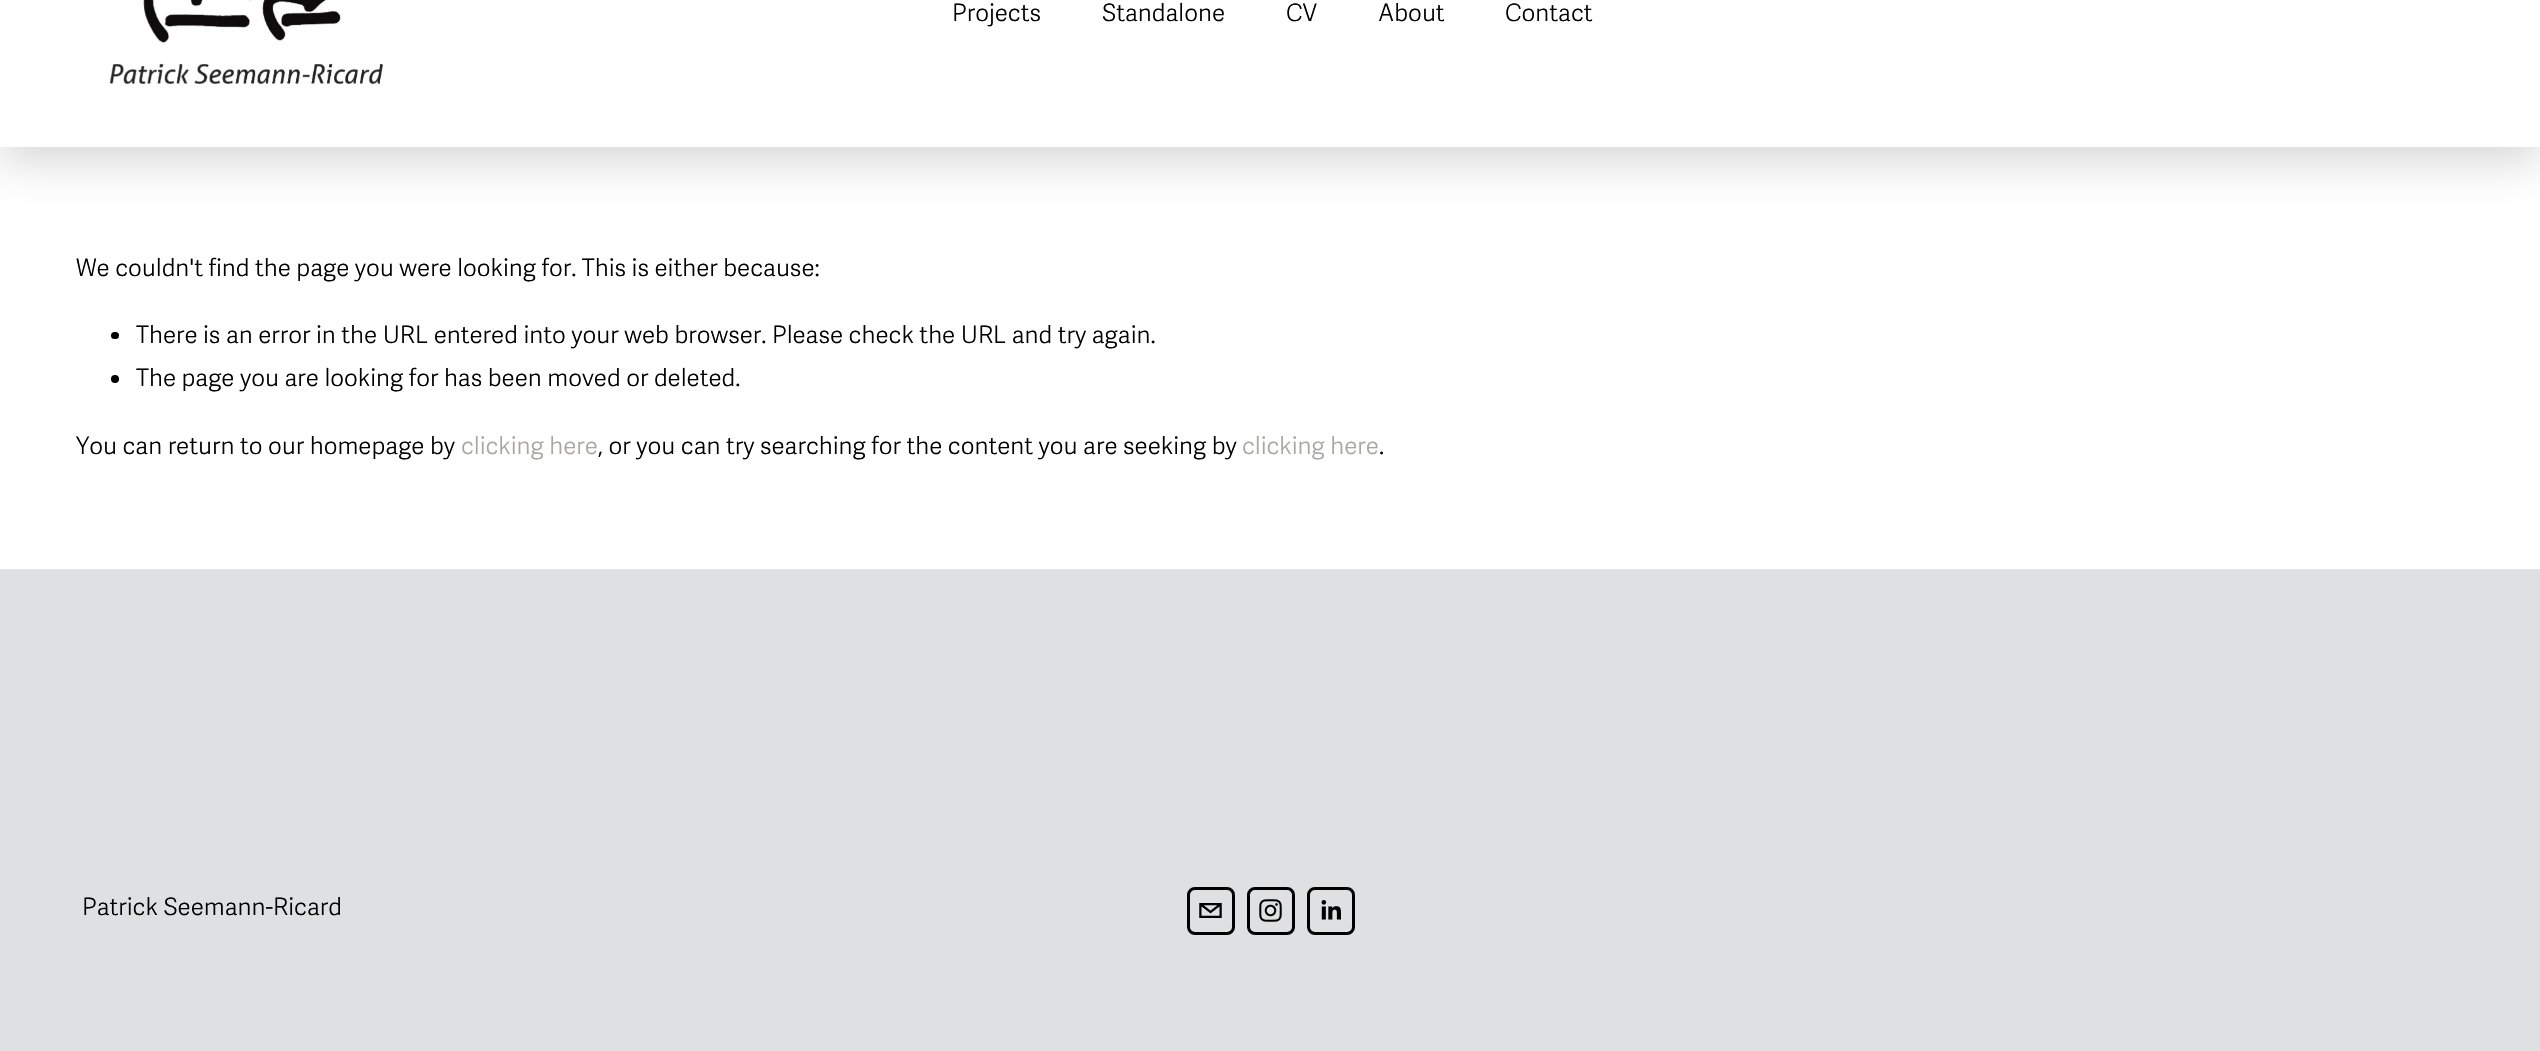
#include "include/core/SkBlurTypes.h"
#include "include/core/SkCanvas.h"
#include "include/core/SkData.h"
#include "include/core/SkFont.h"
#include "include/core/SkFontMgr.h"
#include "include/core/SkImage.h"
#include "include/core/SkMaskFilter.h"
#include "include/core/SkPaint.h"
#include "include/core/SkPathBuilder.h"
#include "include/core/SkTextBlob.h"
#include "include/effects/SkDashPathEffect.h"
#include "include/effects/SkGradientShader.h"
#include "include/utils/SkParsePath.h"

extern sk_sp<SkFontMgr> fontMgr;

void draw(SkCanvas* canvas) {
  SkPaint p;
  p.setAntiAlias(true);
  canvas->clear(SK_ColorWHITE);
  canvas->save();
  canvas->clipRect(SkRect::MakeLTRB(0, 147, 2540, 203));
  p.setColor(SkColorSetRGB(217, 217, 217));
  p.setMaskFilter(SkMaskFilter::MakeBlur(kNormal_SkBlurStyle, 20));
  canvas->drawRect(SkRect::MakeLTRB(0, -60, 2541, 162), p);
  p.setMaskFilter(nullptr);
  canvas->restore();
  canvas->drawImageRect(SkImages::DeferredFromEncodedData(SkData::MakeFromFileName("images/1.png")), SkRect::MakeLTRB(109, 0, 383, 85), SkSamplingOptions());
  p.setColor(SK_ColorBLACK);
  canvas->drawRoundRect(SkRect::MakeLTRB(111, 332, 119, 339), 3.5f, 3.5f, p);
  canvas->drawCircle(115, 379, 4, p);
  p.setColor(SkColorSetRGB(223, 224, 225));
  canvas->drawRect(SkRect::MakeLTRB(0, 569, 2540, 1051), p);
  p.setStyle(SkPaint::kStroke_Style);
  p.setStrokeWidth(3);
  p.setColor(SK_ColorBLACK);
  canvas->drawRoundRect(SkRect::MakeLTRB(1188.5f, 888.5f, 1233.5f, 933.5f), 6.5f, 6.5f, p);
  canvas->drawImageRect(SkImages::DeferredFromEncodedData(SkData::MakeFromFileName("images/2.png")), SkRect::MakeLTRB(1199, 903, 1222, 918), SkSamplingOptions());
  canvas->drawRoundRect(SkRect::MakeLTRB(1248.5f, 888.5f, 1293.5f, 933.5f), 6.5f, 6.5f, p);
  canvas->drawImageRect(SkImages::DeferredFromEncodedData(SkData::MakeFromFileName("images/3.png")), SkRect::MakeLTRB(1259, 899, 1282, 922), SkSamplingOptions());
  canvas->drawRoundRect(SkRect::MakeLTRB(1308.5f, 888.5f, 1353.5f, 933.5f), 6.5f, 6.5f, p);
  canvas->drawImageRect(SkImages::DeferredFromEncodedData(SkData::MakeFromFileName("images/4.png")), SkRect::MakeLTRB(1321, 900, 1341, 920), SkSamplingOptions());
  SkFont font1(fontMgr->matchFamilyStyle("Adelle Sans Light", SkFontStyle(300, SkFontStyle::kNormal_Width, SkFontStyle::kUpright_Slant)), 24);
  font1.setSubpixel(true);
  p.setStyle(SkPaint::kFill_Style);
  canvas->drawString("Projects", 952, 21, font1, p);
  canvas->drawString("Standalone", 1102, 21, font1, p);
  canvas->drawString("CV", 1286, 21, font1, p);
  canvas->drawString("About", 1378, 21, font1, p);
  canvas->drawString("Contact", 1505, 21, font1, p);
  canvas->drawString("We couldn't find the page you were looking for. This is either because:", 76, 276, font1, p);
  canvas->drawString("There is an error in the URL entered into your web browser. Please check the URL and try again.", 136, 343, font1, p);
  canvas->drawString("The page you are looking for has been moved or deleted.", 136, 386, font1, p);
  canvas->drawString("You can return to our homepage by", 76, 454, font1, p);
  p.setColor(SkColorSetRGB(168, 166, 161));
  canvas->drawString("clicking here", 461, 454, font1, p);
  p.setColor(SK_ColorBLACK);
  canvas->drawString(", or you can try searching for the content you are seeking by", 598, 454, font1, p);
  p.setColor(SkColorSetRGB(168, 166, 161));
  canvas->drawString("clicking here", 1242, 454, font1, p);
  p.setColor(SK_ColorBLACK);
  canvas->drawString(".", 1379, 454, font1, p);
  canvas->drawString("Patrick Seemann-Ricard", 82, 915, font1, p);
}
